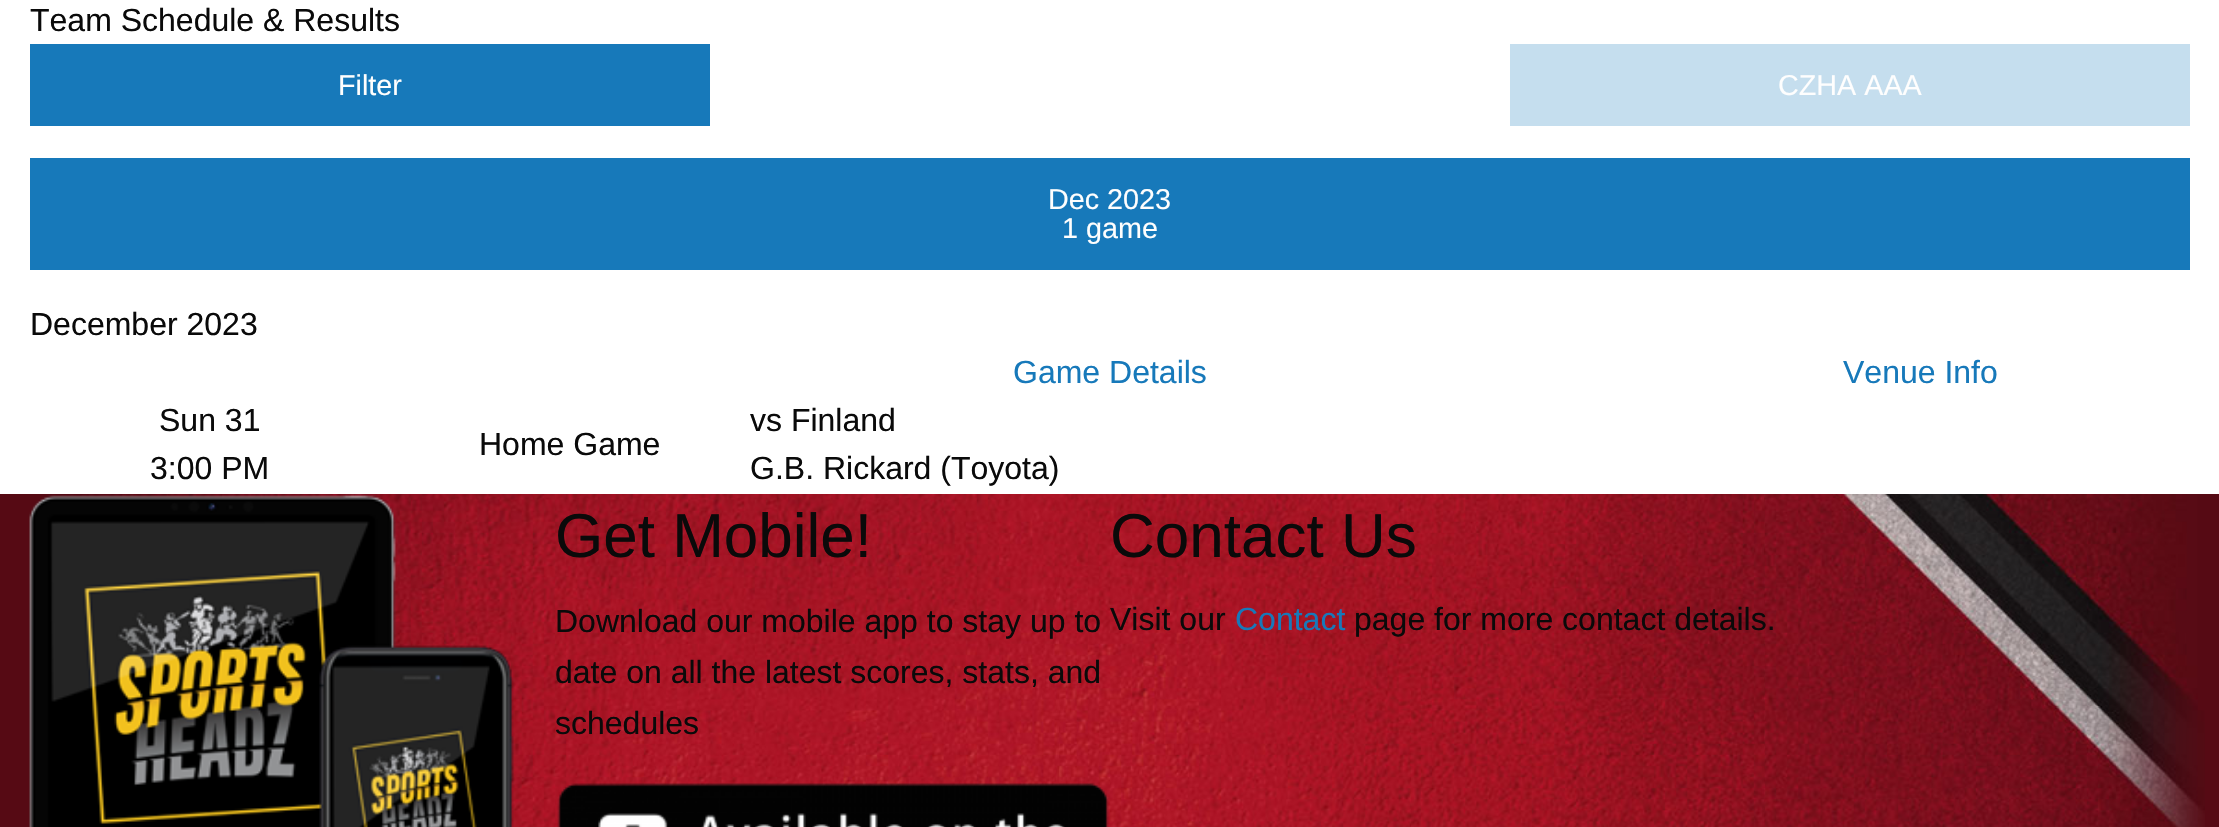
#include "include/core/SkBlurTypes.h"
#include "include/core/SkCanvas.h"
#include "include/core/SkData.h"
#include "include/core/SkFont.h"
#include "include/core/SkFontMgr.h"
#include "include/core/SkImage.h"
#include "include/core/SkMaskFilter.h"
#include "include/core/SkPaint.h"
#include "include/core/SkPathBuilder.h"
#include "include/core/SkTextBlob.h"
#include "include/effects/SkDashPathEffect.h"
#include "include/effects/SkGradientShader.h"
#include "include/utils/SkParsePath.h"

extern sk_sp<SkFontMgr> fontMgr;

void draw(SkCanvas* canvas) {
  SkPaint p;
  p.setAntiAlias(true);
  canvas->clear(SkColorSetRGB(86, 10, 20));
  canvas->drawImageRect(SkImages::DeferredFromEncodedData(SkData::MakeFromFileName("images/1.png")), SkRect::MakeLTRB(45, 494, 2205, 827), SkSamplingOptions());
  p.setColor(SK_ColorWHITE);
  canvas->drawRect(SkRect::MakeLTRB(0, 0, 2219, 494), p);
  p.setColor(SkColorSetRGB(23, 121, 186));
  canvas->drawRect(SkRect::MakeLTRB(30, 44, 710, 126), p);
  p.setColor(SkColorSetRGB(197, 222, 238));
  canvas->drawRect(SkRect::MakeLTRB(1510, 44, 2190, 126), p);
  p.setColor(SkColorSetRGB(23, 121, 186));
  canvas->drawRect(SkRect::MakeLTRB(30, 158, 2190, 270), p);
  canvas->drawImageRect(SkImages::DeferredFromEncodedData(SkData::MakeFromFileName("images/2.png")), SkRect::MakeLTRB(29, 494, 514, 827), SkSamplingOptions());
  canvas->drawImageRect(SkImages::DeferredFromEncodedData(SkData::MakeFromFileName("images/3.png")), SkRect::MakeLTRB(557, 783, 1109, 827), SkSamplingOptions());
  SkFont font1(fontMgr->matchFamilyStyle("Liberation Sans", SkFontStyle::Normal()), 32);
  font1.setSubpixel(true);
  p.setColor(SkColorSetRGB(10, 10, 10));
  canvas->drawString("Team Schedule & Results", 30, 31, font1, p);
  SkFont font2(fontMgr->matchFamilyStyle("Liberation Sans", SkFontStyle::Normal()), 28.75f);
  font2.setSubpixel(true);
  p.setColor(SkColorSetRGB(254, 254, 254));
  canvas->drawString("Filter", 338, 95, font2, p);
  canvas->drawString("CZHA AAA", 1778, 95, font2, p);
  canvas->drawString("Dec 2023", 1048, 209, font2, p);
  canvas->drawString("1 game", 1062, 238, font2, p);
  p.setColor(SkColorSetRGB(10, 10, 10));
  canvas->drawString("December 2023", 30, 335, font1, p);
  p.setColor(SkColorSetRGB(23, 121, 186));
  canvas->drawString("Game Details", 1013, 383, font1, p);
  canvas->drawString("Venue Info", 1843, 383, font1, p);
  p.setColor(SkColorSetRGB(10, 10, 10));
  canvas->drawString("Sun 31", 159, 431, font1, p);
  canvas->drawString("3:00 PM", 150, 479, font1, p);
  canvas->drawString("Home Game", 479, 455, font1, p);
  canvas->drawString("vs Finland", 750, 431, font1, p);
  canvas->drawString("G.B. Rickard (Toyota)", 750, 479, font1, p);
  SkFont font3(fontMgr->matchFamilyStyle("Liberation Sans", SkFontStyle::Normal()), 62);
  font3.setSubpixel(true);
  canvas->drawString("Get Mobile!", 555, 557, font3, p);
  canvas->drawString("Download our mobile app to stay up to", 555, 632, font1, p);
  canvas->drawString("date on all the latest scores, stats, and", 555, 683, font1, p);
  canvas->drawString("schedules", 555, 734, font1, p);
  canvas->drawString("Contact Us", 1110, 557, font3, p);
  canvas->drawString("Visit our", 1110, 630, font1, p);
  p.setColor(SkColorSetRGB(23, 121, 186));
  canvas->drawString("Contact", 1235, 630, font1, p);
  p.setColor(SkColorSetRGB(10, 10, 10));
  canvas->drawString("page for more contact details.", 1354, 630, font1, p);
}
